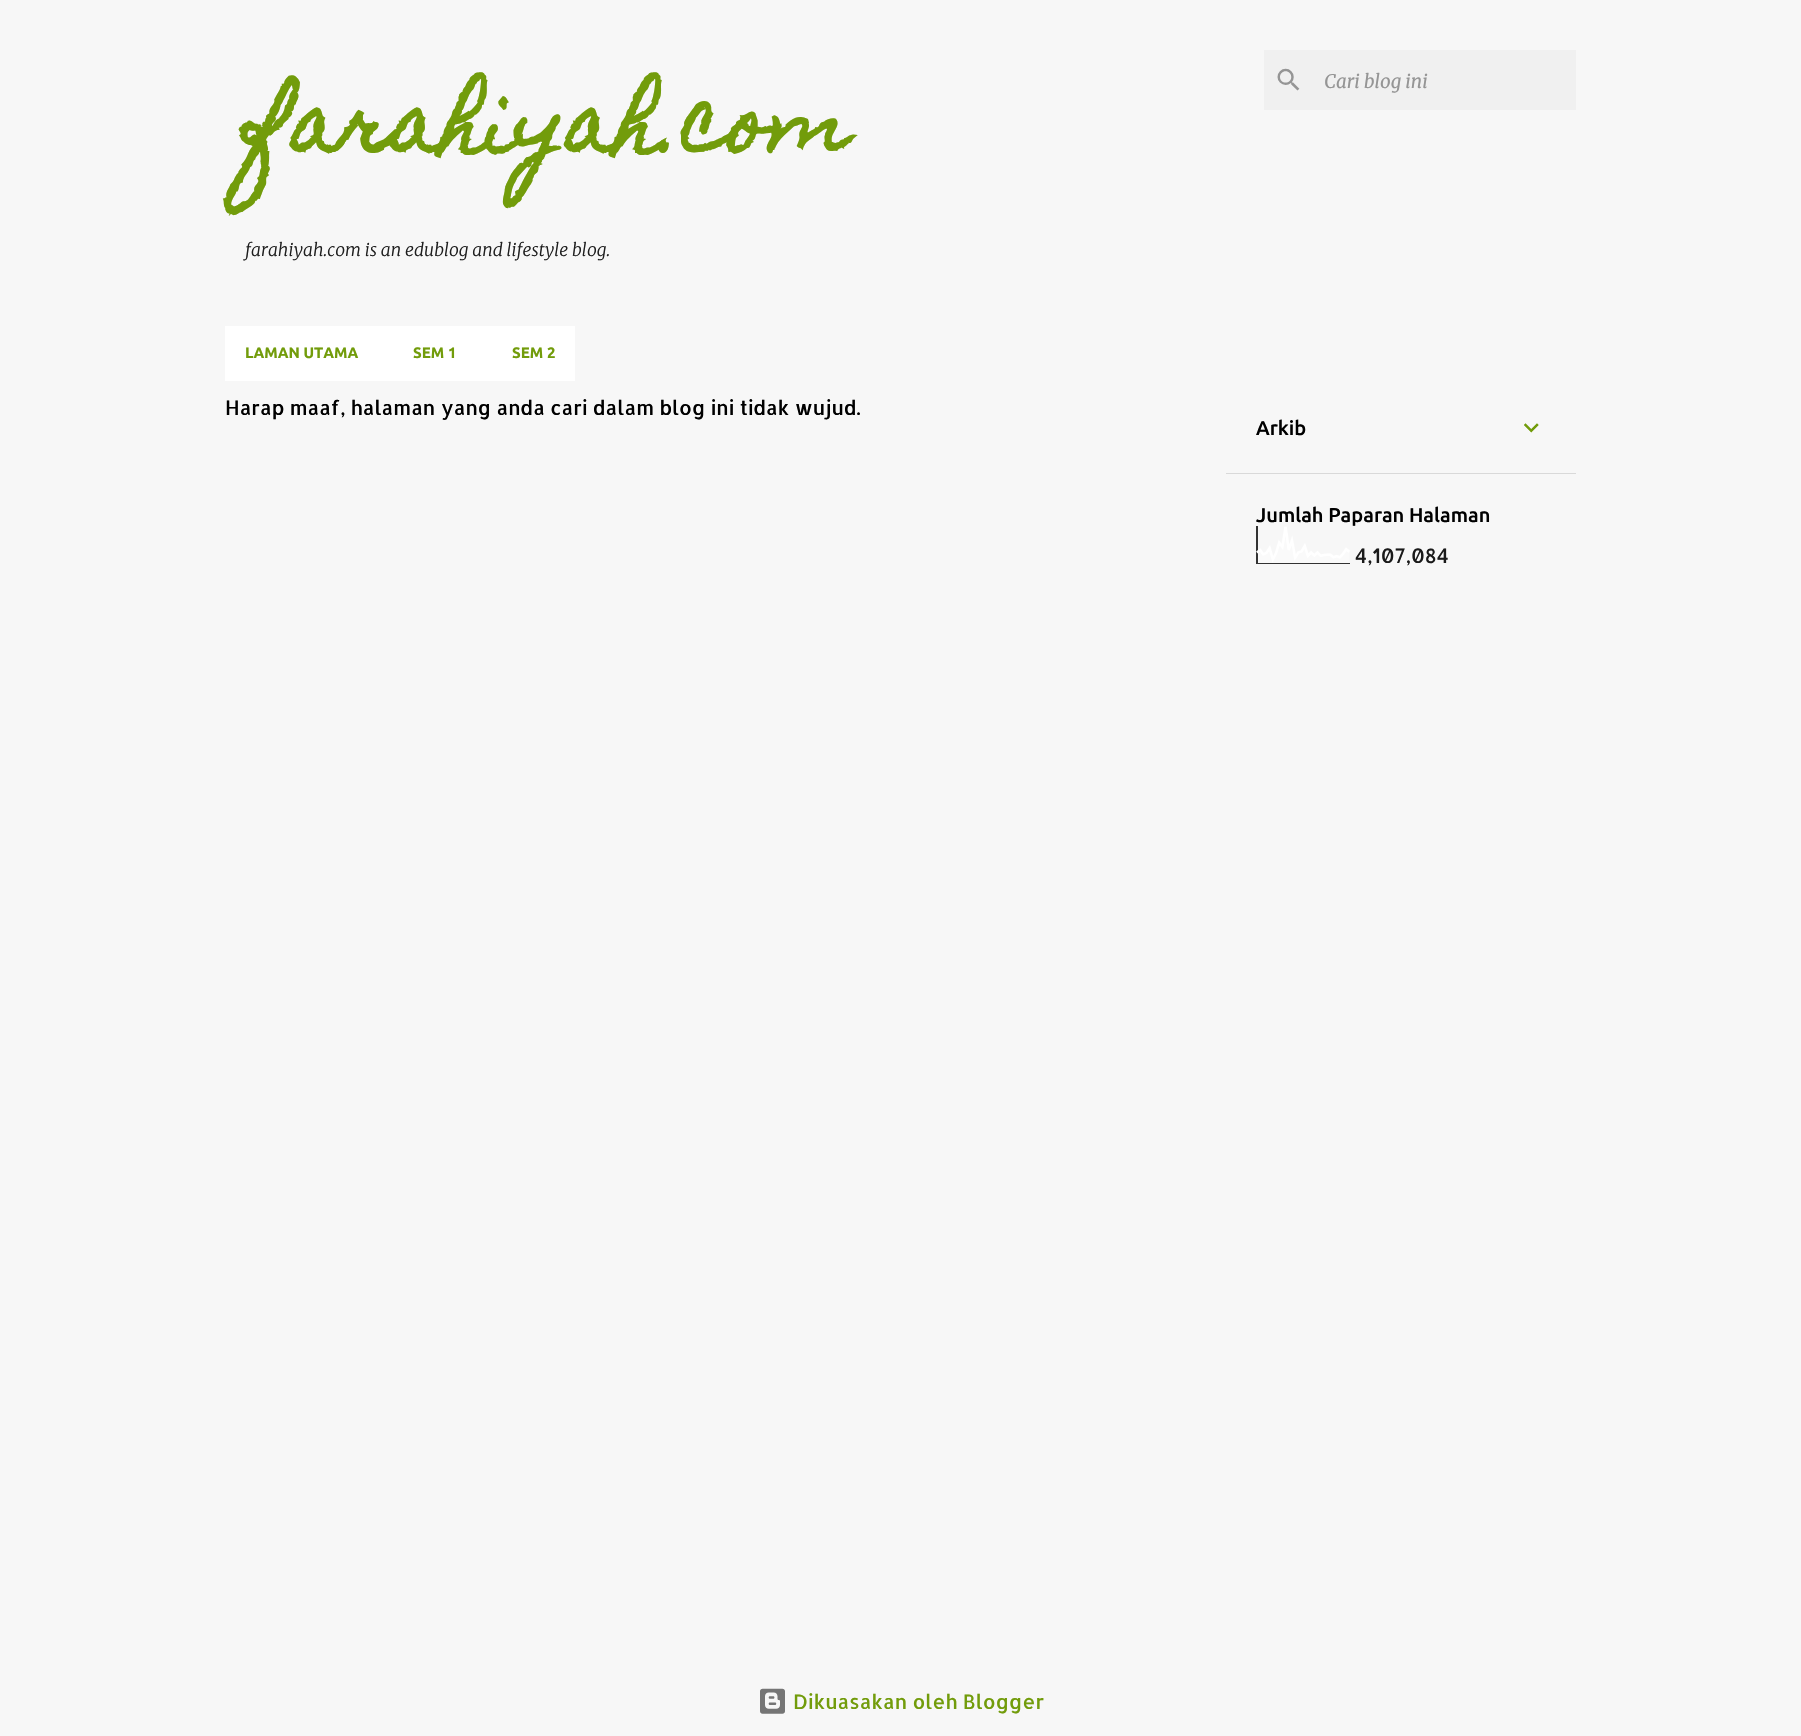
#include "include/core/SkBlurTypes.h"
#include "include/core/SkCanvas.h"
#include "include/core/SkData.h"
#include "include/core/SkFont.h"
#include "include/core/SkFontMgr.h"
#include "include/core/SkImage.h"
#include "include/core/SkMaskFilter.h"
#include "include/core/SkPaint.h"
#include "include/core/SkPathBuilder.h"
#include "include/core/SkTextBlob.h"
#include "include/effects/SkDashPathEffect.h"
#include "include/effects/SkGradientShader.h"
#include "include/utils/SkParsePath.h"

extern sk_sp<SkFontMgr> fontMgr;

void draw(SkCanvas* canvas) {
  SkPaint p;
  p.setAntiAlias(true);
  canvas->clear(SkColorSetRGB(247, 247, 247));
  p.setColor(SkColorSetRGB(240, 240, 240));
  canvas->drawRect(SkRect::MakeLTRB(1264, 50, 1576, 110), p);
  canvas->drawImageRect(SkImages::DeferredFromEncodedData(SkData::MakeFromFileName("images/1.png")), SkRect::MakeLTRB(1277, 68, 1300, 91), SkSamplingOptions());
  p.setColor(SK_ColorWHITE);
  canvas->drawRect(SkRect::MakeLTRB(225, 326, 575, 381), p);
  canvas->drawImageRect(SkImages::DeferredFromEncodedData(SkData::MakeFromFileName("images/2.png")), SkRect::MakeLTRB(1524, 423, 1539, 433), SkSamplingOptions());
  p.setColor(SkColorSetRGB(217, 217, 217));
  canvas->drawRect(SkRect::MakeLTRB(1226, 473, 1576, 474), p);
  canvas->drawImageRect(SkImages::DeferredFromEncodedData(SkData::MakeFromFileName("images/4.png")), SkRect::MakeLTRB(760, 1688, 785, 1714), SkSamplingOptions());
  SkFont font1(fontMgr->matchFamilyStyle("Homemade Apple", SkFontStyle::Bold()), 77.5f);
  font1.setSubpixel(true);
  p.setColor(SkColorSetRGB(114, 156, 11));
  canvas->drawString("farahiyah.com", 245, 150, font1, p);
  SkFont font2(fontMgr->matchFamilyStyle("Merriweather", SkFontStyle(300, SkFontStyle::kNormal_Width, SkFontStyle::kItalic_Slant)), 17.5f);
  font2.setSubpixel(true);
  p.setColor(SkColorSetRGB(31, 31, 31));
  canvas->drawString("farahiyah.com is an edublog and lifestyle blog.", 245, 256, font2, p);
  SkFont font3(fontMgr->matchFamilyStyle("Merriweather", SkFontStyle::Italic()), 18.75f);
  font3.setSubpixel(true);
  p.setColor(SkColorSetRGB(149, 149, 149));
  canvas->drawString("Cari blog ini", 1324, 88, font3, p);
  SkFont font4(fontMgr->matchFamilyStyle("Ubuntu", SkFontStyle::Bold()), 15);
  font4.setSubpixel(true);
  p.setColor(SkColorSetRGB(114, 156, 11));
  canvas->drawString("LAMAN UTAMA", 245, 358, font4, p);
  canvas->drawString("SEM 1", 413, 358, font4, p);
  canvas->drawString("SEM 2", 512, 358, font4, p);
  SkFont font5(fontMgr->matchFamilyStyle("Allerta", SkFontStyle::Normal()), 20);
  font5.setSubpixel(true);
  p.setColor(SK_ColorBLACK);
  canvas->drawString("Harap maaf, halaman yang anda cari dalam blog ini tidak wujud.", 225, 415, font5, p);
  SkFont font6(fontMgr->matchFamilyStyle("Ubuntu", SkFontStyle(500, SkFontStyle::kNormal_Width, SkFontStyle::kUpright_Slant)), 20);
  font6.setSubpixel(true);
  canvas->drawString("Arkib", 1256, 435, font6, p);
  canvas->drawString("Jumlah Paparan Halaman", 1256, 522, font6, p);
  canvas->drawString("4,107,084", 1355, 563, font5, p);
  canvas->drawImageRect(SkImages::DeferredFromEncodedData(SkData::MakeFromFileName("images/3.png")), SkRect::MakeLTRB(1256, 526, 1448, 566), SkSamplingOptions());
  p.setColor(SkColorSetRGB(114, 156, 11));
  canvas->drawString("Dikuasakan oleh Blogger", 793, 1709, font5, p);
}
